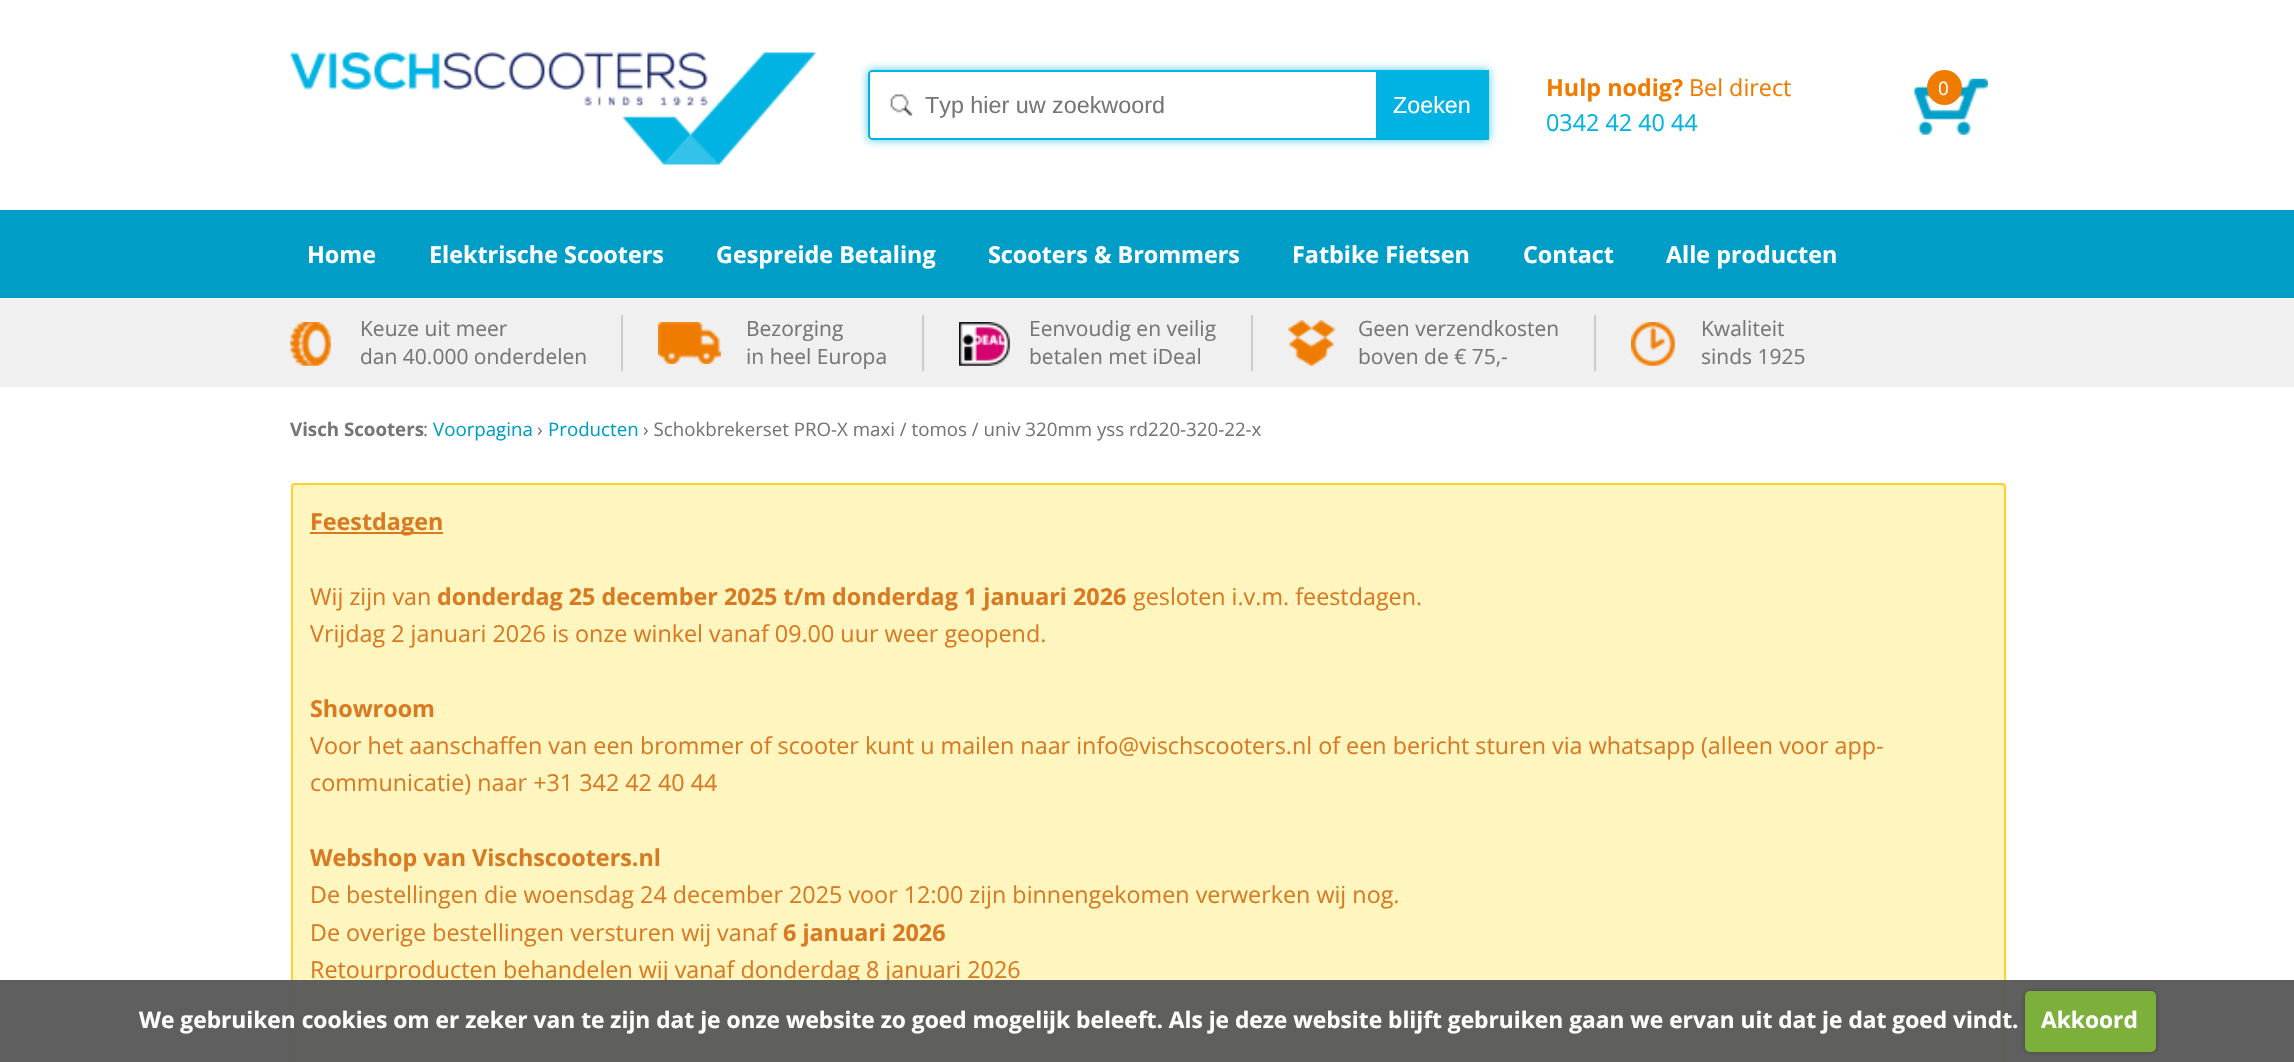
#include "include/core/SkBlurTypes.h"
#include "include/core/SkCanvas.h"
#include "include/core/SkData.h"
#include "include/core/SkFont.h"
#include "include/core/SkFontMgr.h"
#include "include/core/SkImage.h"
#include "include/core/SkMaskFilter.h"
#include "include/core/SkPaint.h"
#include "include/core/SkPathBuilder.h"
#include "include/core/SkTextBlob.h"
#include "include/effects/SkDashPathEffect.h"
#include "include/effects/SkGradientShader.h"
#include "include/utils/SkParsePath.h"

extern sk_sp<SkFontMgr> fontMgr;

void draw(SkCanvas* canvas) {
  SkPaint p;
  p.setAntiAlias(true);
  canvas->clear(SK_ColorWHITE);
  canvas->drawImageRect(SkImages::DeferredFromEncodedData(SkData::MakeFromFileName("images/1.png")), SkRect::MakeLTRB(290, 52, 816, 165), SkSamplingOptions());
  canvas->drawImageRect(SkImages::DeferredFromEncodedData(SkData::MakeFromFileName("images/2.png")), SkRect::MakeLTRB(1914, 78, 1988, 135), SkSamplingOptions());
  p.setColor(SkColorSetRGB(239, 124, 0));
  canvas->drawCircle(1944.5f, 87.5f, 17.5f, p);
  canvas->save();
  canvas->clipPath(SkPathBuilder(SkPathFillType::kEvenOdd).moveTo(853, 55).lineTo(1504, 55).lineTo(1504, 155).lineTo(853, 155).close().moveTo(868, 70).lineTo(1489, 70).lineTo(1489, 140).lineTo(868, 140).close().detach(), true);
  p.setColor(SkColorSetARGB(179, 1, 179, 227));
  p.setMaskFilter(SkMaskFilter::MakeBlur(kNormal_SkBlurStyle, 4.5f));
  canvas->drawRect(SkRect::MakeLTRB(868, 70, 1489, 140), p);
  p.setMaskFilter(nullptr);
  canvas->restore();
  canvas->drawImageRect(SkImages::DeferredFromEncodedData(SkData::MakeFromFileName("images/3.png")), SkRect::MakeLTRB(890, 94, 913, 116), SkSamplingOptions());
  p.setStyle(SkPaint::kStroke_Style);
  p.setStrokeWidth(2);
  p.setColor(SkColorSetRGB(0, 179, 227));
  canvas->drawPath(SkPathBuilder().moveTo(872, 71).lineTo(1488, 71).lineTo(1488, 139).lineTo(872, 139).cubicTo(870.5f, 139, 869, 137.5f, 869, 136).lineTo(869, 74).cubicTo(869, 72.5f, 870.5f, 71, 872, 71).close().detach(), p);
  p.setStyle(SkPaint::kFill_Style);
  canvas->drawPath(SkPathBuilder().moveTo(1376, 70).lineTo(1485, 70).cubicTo(1487, 70, 1489, 72, 1489, 74).lineTo(1489, 136).cubicTo(1489, 138, 1487, 140, 1485, 140).lineTo(1376, 140).close().detach(), p);
  p.setColor(SkColorSetRGB(255, 246, 191));
  canvas->drawRoundRect(SkRect::MakeLTRB(292, 484, 2005, 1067), 3, 3, p);
  p.setStyle(SkPaint::kStroke_Style);
  p.setColor(SkColorSetRGB(255, 211, 36));
  canvas->drawRoundRect(SkRect::MakeLTRB(292, 484, 2005, 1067), 3, 3, p);
  p.setStyle(SkPaint::kFill_Style);
  p.setColor(SkColorSetRGB(217, 122, 35));
  canvas->drawRect(SkRect::MakeLTRB(310, 532, 443, 534), p);
  p.setColor(SkColorSetRGB(0, 157, 199));
  canvas->drawRect(SkRect::MakeLTRB(0, 210, 2294, 298), p);
  p.setColor(SkColorSetRGB(240, 240, 240));
  canvas->drawRect(SkRect::MakeLTRB(0, 298, 2294, 387), p);
  canvas->drawImageRect(SkImages::DeferredFromEncodedData(SkData::MakeFromFileName("images/4.png")), SkRect::MakeLTRB(290, 322, 331, 366), SkSamplingOptions());
  p.setColor(SkColorSetRGB(203, 203, 203));
  canvas->drawRect(SkRect::MakeLTRB(621, 315, 623, 371), p);
  canvas->drawImageRect(SkImages::DeferredFromEncodedData(SkData::MakeFromFileName("images/5.png")), SkRect::MakeLTRB(658, 322, 721, 364), SkSamplingOptions());
  canvas->drawRect(SkRect::MakeLTRB(922, 315, 924, 371), p);
  canvas->drawImageRect(SkImages::DeferredFromEncodedData(SkData::MakeFromFileName("images/6.png")), SkRect::MakeLTRB(959, 322, 1010, 366), SkSamplingOptions());
  canvas->drawRect(SkRect::MakeLTRB(1251, 315, 1253, 371), p);
  canvas->drawImageRect(SkImages::DeferredFromEncodedData(SkData::MakeFromFileName("images/7.png")), SkRect::MakeLTRB(1288, 320, 1336, 366), SkSamplingOptions());
  canvas->drawRect(SkRect::MakeLTRB(1594, 315, 1596, 371), p);
  canvas->drawImageRect(SkImages::DeferredFromEncodedData(SkData::MakeFromFileName("images/8.png")), SkRect::MakeLTRB(1631, 322, 1675, 366), SkSamplingOptions());
  SkFont font1(fontMgr->matchFamilyStyle("Open Sans", SkFontStyle::Bold()), 23.33f);
  font1.setSubpixel(true);
  p.setColor(SkColorSetRGB(239, 124, 0));
  canvas->drawString("Hulp nodig?", 1546, 96, font1, p);
  SkFont font2(fontMgr->matchFamilyStyle("Open Sans", SkFontStyle::Normal()), 23.33f);
  font2.setSubpixel(true);
  canvas->drawString("Bel direct", 1689, 96, font2, p);
  p.setColor(SkColorSetRGB(0, 179, 227));
  canvas->drawString("0342 42 40 44", 1546, 131, font2, p);
  SkFont font3(fontMgr->matchFamilyStyle("Open Sans", SkFontStyle::Normal()), 18.7f);
  font3.setSubpixel(true);
  p.setColor(SK_ColorWHITE);
  canvas->drawString("0", 1938, 95, font3, p);
  SkFont font4(fontMgr->matchFamilyStyle("Liberation Sans", SkFontStyle::Normal()), 23.33f);
  font4.setSubpixel(true);
  p.setColor(SkColorSetRGB(118, 118, 118));
  canvas->drawString("Typ hier uw zoekwoord", 925, 113, font4, p);
  p.setColor(SK_ColorWHITE);
  canvas->drawString("Zoeken", 1393, 113, font4, p);
  SkFont font5(fontMgr->matchFamilyStyle("Open Sans", SkFontStyle::Bold()), 18.7f);
  font5.setSubpixel(true);
  p.setColor(SkColorSetRGB(118, 118, 118));
  canvas->drawString("Visch Scooters", 290, 436, font5, p);
  canvas->drawString(":", 423, 436, font3, p);
  p.setColor(SkColorSetRGB(0, 157, 199));
  canvas->drawString("Voorpagina", 433, 436, font3, p);
  p.setColor(SkColorSetRGB(118, 118, 118));
  canvas->drawString("›", 537, 436, font3, p);
  p.setColor(SkColorSetRGB(0, 157, 199));
  canvas->drawString("Producten", 548, 436, font3, p);
  p.setColor(SkColorSetRGB(118, 118, 118));
  canvas->drawString("› Schokbrekerset PRO-X maxi / tomos / univ 320mm yss rd220-320-22-x", 643, 436, font3, p);
  p.setColor(SkColorSetRGB(217, 122, 35));
  canvas->drawString("Feestdagen", 310, 530, font1, p);
  canvas->drawString("Wij zijn van", 310, 605, font2, p);
  canvas->drawString("donderdag 25 december 2025 t/m donderdag 1 januari 2026", 437, 605, font1, p);
  canvas->drawString("gesloten i.v.m. feestdagen.", 1133, 605, font2, p);
  canvas->drawString("Vrijdag 2 januari 2026 is onze winkel vanaf 09.00 uur weer geopend.", 310, 642, font2, p);
  canvas->drawString("Showroom", 310, 717, font1, p);
  canvas->drawString("Voor het aanschaffen van een brommer of scooter kunt u mailen naar info@vischscooters.nl of een bericht sturen via whatsapp (alleen voor app-", 310, 754, font2, p);
  canvas->drawString("communicatie) naar +31 342 42 40 44", 310, 791, font2, p);
  canvas->drawString("Webshop van Vischscooters.nl", 310, 866, font1, p);
  canvas->drawString("De bestellingen die woensdag 24 december 2025 voor 12:00 zijn binnengekomen verwerken wij nog.", 310, 903, font2, p);
  canvas->drawString("De overige bestellingen versturen wij vanaf", 310, 941, font2, p);
  canvas->drawString("6 januari 2026", 783, 941, font1, p);
  canvas->drawString("Retourproducten behandelen wij vanaf donderdag 8 januari 2026", 310, 978, font2, p);
  p.setColor(SK_ColorWHITE);
  canvas->drawString("Home", 307, 263, font1, p);
  canvas->drawString("Elektrische Scooters", 429, 263, font1, p);
  canvas->drawString("Gespreide Betaling", 716, 263, font1, p);
  canvas->drawString("Scooters & Brommers", 988, 263, font1, p);
  canvas->drawString("Fatbike Fietsen", 1292, 263, font1, p);
  canvas->drawString("Contact", 1523, 263, font1, p);
  canvas->drawString("Alle producten", 1666, 263, font1, p);
  SkFont font6(fontMgr->matchFamilyStyle("Open Sans", SkFontStyle::Normal()), 21);
  font6.setSubpixel(true);
  p.setColor(SkColorSetRGB(118, 118, 118));
  canvas->drawString("Keuze uit meer", 360, 336, font6, p);
  canvas->drawString("dan 40.000 onderdelen", 360, 364, font6, p);
  canvas->drawString("Bezorging", 746, 336, font6, p);
  canvas->drawString("in heel Europa", 746, 364, font6, p);
  canvas->drawString("Eenvoudig en veilig", 1029, 336, font6, p);
  canvas->drawString("betalen met iDeal", 1029, 364, font6, p);
  canvas->drawString("Geen verzendkosten", 1358, 336, font6, p);
  canvas->drawString("boven de € 75,-", 1358, 364, font6, p);
  canvas->drawString("Kwaliteit", 1701, 336, font6, p);
  canvas->drawString("sinds 1925", 1701, 364, font6, p);
  p.setColor(SkColorSetARGB(242, 86, 86, 86));
  canvas->drawRect(SkRect::MakeLTRB(0, 980, 2294, 1062), p);
  SkFont font7(fontMgr->matchFamilyStyle("Open Sans", SkFontStyle::Bold()), 22.75f);
  font7.setSubpixel(true);
  p.setColor(SK_ColorWHITE);
  canvas->drawString("We gebruiken cookies om er zeker van te zijn dat je onze website zo goed mogelijk beleeft. Als je deze website blijft gebruiken gaan we ervan uit dat je dat goed vindt.", 139, 1028, font7, p);
  p.setColor(SkColorSetARGB(64, 0, 0, 0));
  p.setMaskFilter(SkMaskFilter::MakeBlur(kNormal_SkBlurStyle, 2));
  canvas->drawRoundRect(SkRect::MakeLTRB(2025, 991, 2156, 1052), 5, 5, p);
  p.setMaskFilter(nullptr);
  p.setColor(SkColorSetRGB(125, 175, 59));
  canvas->drawRoundRect(SkRect::MakeLTRB(2025, 991, 2156, 1052), 5, 5, p);
  p.setColor(SK_ColorWHITE);
  canvas->drawString("Akkoord", 2041, 1028, font7, p);
}
